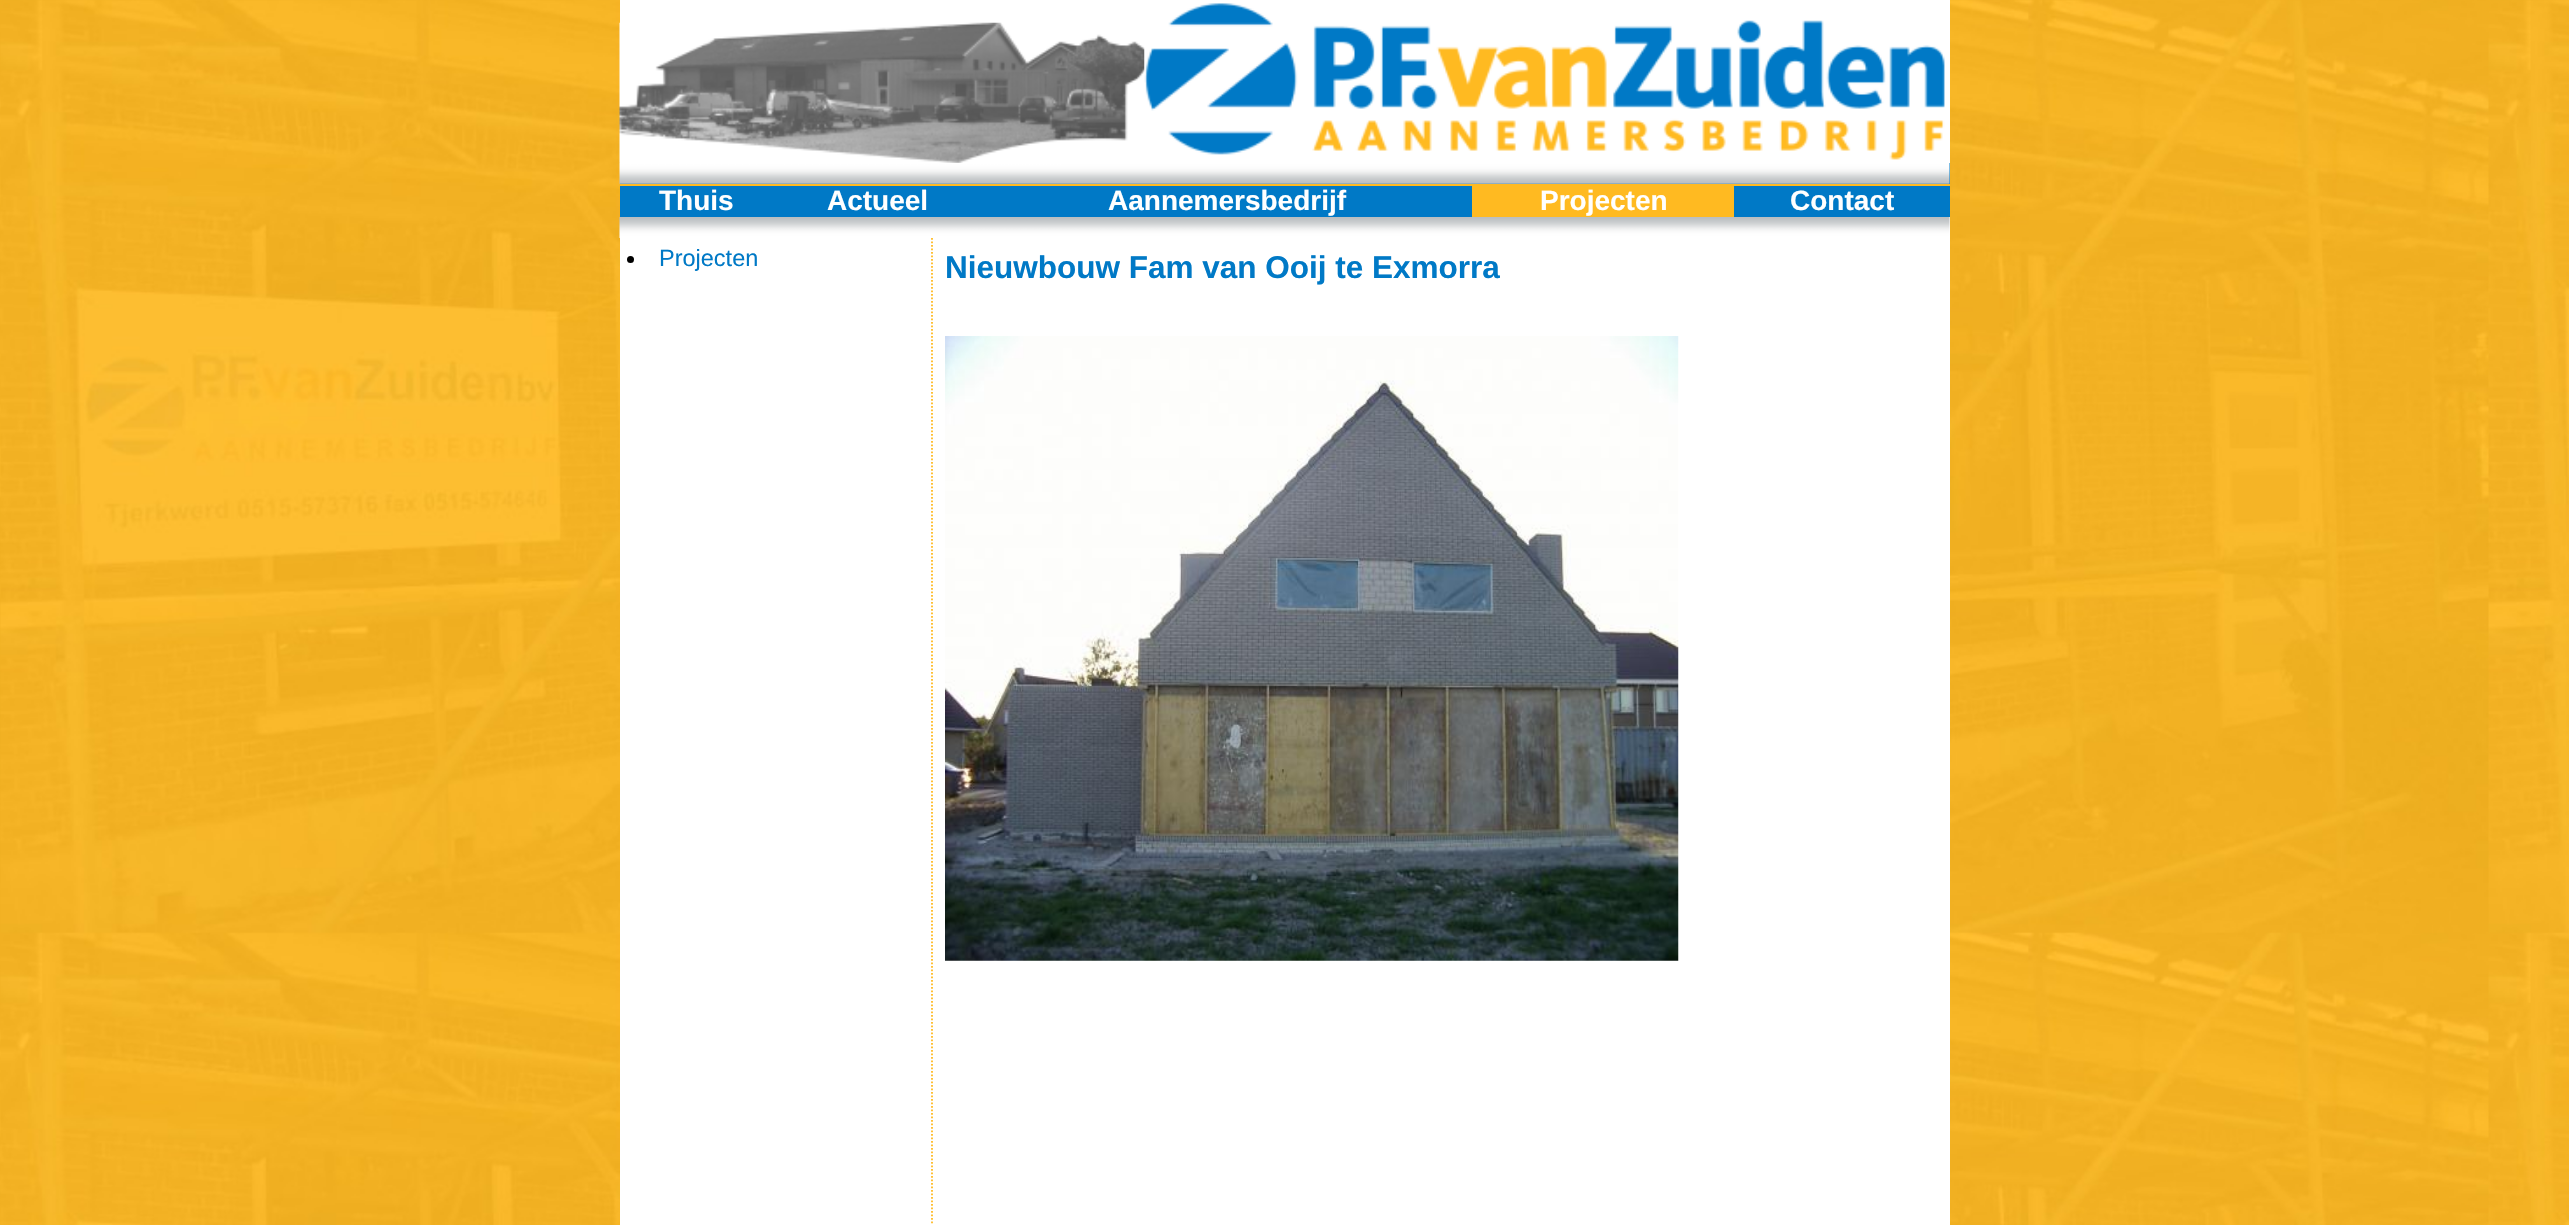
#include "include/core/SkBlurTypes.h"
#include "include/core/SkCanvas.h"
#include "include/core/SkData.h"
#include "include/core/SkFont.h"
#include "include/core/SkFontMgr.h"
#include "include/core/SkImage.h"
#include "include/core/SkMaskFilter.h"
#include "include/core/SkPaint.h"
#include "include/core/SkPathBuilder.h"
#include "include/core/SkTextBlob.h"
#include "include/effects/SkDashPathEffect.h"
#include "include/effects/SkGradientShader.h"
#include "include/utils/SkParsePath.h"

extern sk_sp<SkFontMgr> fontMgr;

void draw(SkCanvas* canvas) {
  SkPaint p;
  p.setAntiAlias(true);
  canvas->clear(SK_ColorWHITE);
  canvas->drawImageRect(SkImages::DeferredFromEncodedData(SkData::MakeFromFileName("images/1.png")), SkRect::MakeLTRB(0, 0, 2569, 1225), SkSamplingOptions());
  p.setColor(SK_ColorWHITE);
  canvas->drawRect(SkRect::MakeLTRB(620, 0, 1950, 1225), p);
  p.setColor(SkColorSetRGB(0, 121, 198));
  canvas->drawRect(SkRect::MakeLTRB(620, 163, 1950, 184), p);
  canvas->drawImageRect(SkImages::DeferredFromEncodedData(SkData::MakeFromFileName("images/4.png")), SkRect::MakeLTRB(619, 162, 1950, 184), SkSamplingOptions());
  canvas->drawImageRect(SkImages::DeferredFromEncodedData(SkData::MakeFromFileName("images/2.png")), SkRect::MakeLTRB(619, 22, 1145, 163), SkSamplingOptions());
  canvas->drawImageRect(SkImages::DeferredFromEncodedData(SkData::MakeFromFileName("images/3.png")), SkRect::MakeLTRB(1144, 3, 1945, 160), SkSamplingOptions());
  canvas->drawRect(SkRect::MakeLTRB(620, 186, 1950, 217), p);
  p.setColor(SkColorSetRGB(255, 186, 33));
  canvas->drawRect(SkRect::MakeLTRB(620, 184, 1950, 186), p);
  canvas->drawRect(SkRect::MakeLTRB(1472, 186, 1734, 217), p);
  canvas->drawImageRect(SkImages::DeferredFromEncodedData(SkData::MakeFromFileName("images/5.png")), SkRect::MakeLTRB(619, 217, 1950, 238), SkSamplingOptions());
  p.setColor(SK_ColorBLACK);
  canvas->drawCircle(630.5f, 259.5f, 3.5f, p);
  p.setStyle(SkPaint::kStroke_Style);
  p.setStrokeWidth(1.8f);
  p.setColor(SkColorSetRGB(255, 186, 33));
  p.setPathEffect(SkDashPathEffect::Make({{1.75f, 1.75f}}, 0));
  canvas->drawPath(SkPathBuilder().moveTo(932, 238).lineTo(932, 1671).detach(), p);
  p.setPathEffect(nullptr);
  canvas->drawImageRect(SkImages::DeferredFromEncodedData(SkData::MakeFromFileName("images/6.png")), SkRect::MakeLTRB(945, 336, 1679, 961), SkSamplingOptions());
  SkFont font1(fontMgr->matchFamilyStyle("Liberation Sans", SkFontStyle::Bold()), 28);
  font1.setSubpixel(true);
  p.setStyle(SkPaint::kFill_Style);
  p.setColor(SK_ColorWHITE);
  canvas->drawString("Thuis", 659, 210, font1, p);
  canvas->drawString("Actueel", 827, 210, font1, p);
  canvas->drawString("Aannemersbedrijf", 1108, 210, font1, p);
  canvas->drawString("Projecten", 1540, 210, font1, p);
  canvas->drawString("Contact", 1790, 210, font1, p);
  SkFont font2(fontMgr->matchFamilyStyle("Liberation Sans", SkFontStyle::Normal()), 23.5f);
  font2.setSubpixel(true);
  p.setColor(SkColorSetRGB(0, 121, 198));
  canvas->drawString("Projecten", 659, 266, font2, p);
  SkFont font3(fontMgr->matchFamilyStyle("Liberation Sans", SkFontStyle::Bold()), 31.5f);
  font3.setSubpixel(true);
  canvas->drawString("Nieuwbouw Fam van Ooij te Exmorra", 945, 278, font3, p);
}
